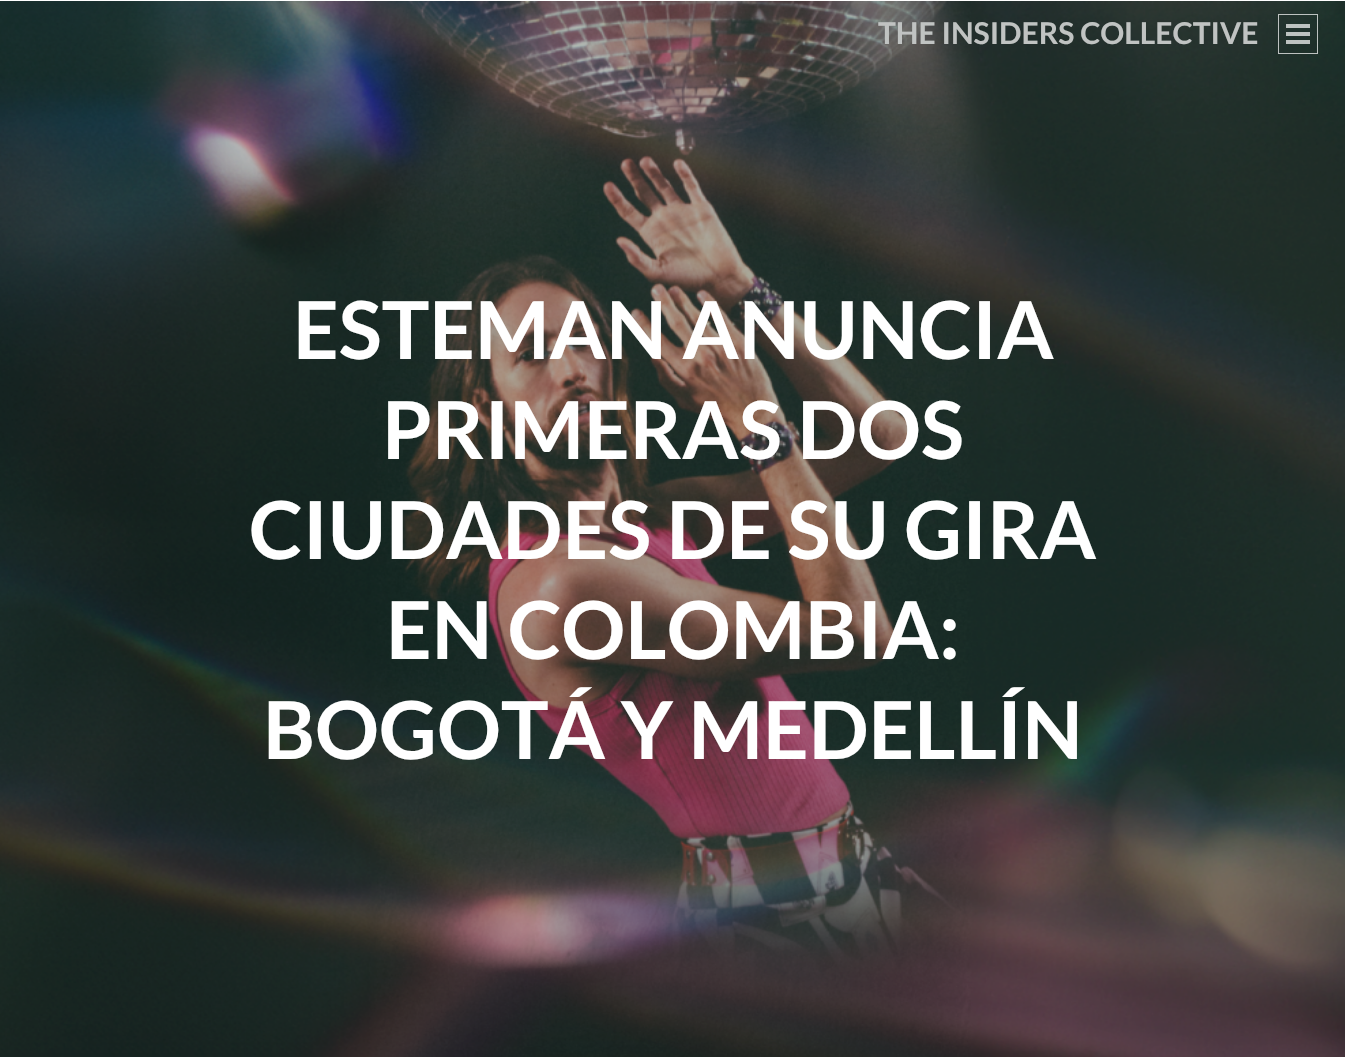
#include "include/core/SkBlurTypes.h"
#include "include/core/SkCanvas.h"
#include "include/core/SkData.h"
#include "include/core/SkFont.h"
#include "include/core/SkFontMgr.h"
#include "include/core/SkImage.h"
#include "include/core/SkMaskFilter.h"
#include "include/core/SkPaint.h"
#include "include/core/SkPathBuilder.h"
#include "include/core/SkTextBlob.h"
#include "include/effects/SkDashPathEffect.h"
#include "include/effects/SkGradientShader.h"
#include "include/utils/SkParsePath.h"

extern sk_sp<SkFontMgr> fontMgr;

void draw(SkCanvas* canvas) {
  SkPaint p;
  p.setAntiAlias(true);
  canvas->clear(SK_ColorWHITE);
  canvas->drawImageRect(SkImages::DeferredFromEncodedData(SkData::MakeFromFileName("images/1.png")), SkRect::MakeLTRB(0, 1, 1345, 1057), SkSamplingOptions());
  p.setStyle(SkPaint::kStroke_Style);
  p.setStrokeWidth(1);
  p.setColor(SkColorSetARGB(179, 255, 255, 255));
  canvas->drawRect(SkRect::MakeLTRB(1278.5f, 14.5f, 1317.5f, 53.5f), p);
  p.setStyle(SkPaint::kFill_Style);
  canvas->drawRect(SkRect::MakeLTRB(1286, 32, 1310, 36), p);
  canvas->drawRect(SkRect::MakeLTRB(1286, 24, 1310, 28), p);
  canvas->drawRect(SkRect::MakeLTRB(1286, 40, 1310, 44), p);
  SkFont font1(fontMgr->matchFamilyStyle("Lato", SkFontStyle::Bold()), 30);
  font1.setSubpixel(true);
  p.setColor(SkColorSetRGB(192, 195, 194));
  canvas->drawString("THE INSIDERS COLLECTIVE", 878, 44, font1, p);
  SkFont font2(fontMgr->matchFamilyStyle("Lato", SkFontStyle::Bold()), 80);
  font2.setSubpixel(true);
  p.setColor(SK_ColorWHITE);
  canvas->drawString("ESTEMAN ANUNCIA", 293, 359, font2, p);
  canvas->drawString("PRIMERAS DOS", 382, 459, font2, p);
  canvas->drawString("CIUDADES DE SU GIRA", 249, 559, font2, p);
  canvas->drawString("EN COLOMBIA:", 386, 659, font2, p);
  canvas->drawString("BOGOTÁ Y MEDELLÍN", 263, 759, font2, p);
}
